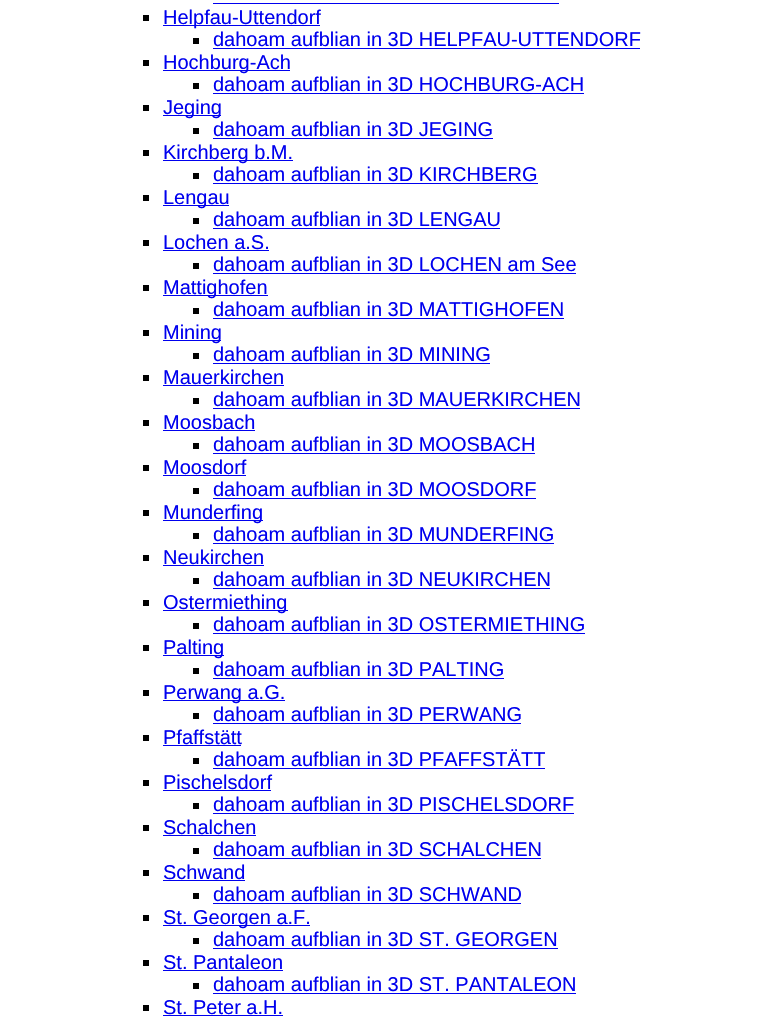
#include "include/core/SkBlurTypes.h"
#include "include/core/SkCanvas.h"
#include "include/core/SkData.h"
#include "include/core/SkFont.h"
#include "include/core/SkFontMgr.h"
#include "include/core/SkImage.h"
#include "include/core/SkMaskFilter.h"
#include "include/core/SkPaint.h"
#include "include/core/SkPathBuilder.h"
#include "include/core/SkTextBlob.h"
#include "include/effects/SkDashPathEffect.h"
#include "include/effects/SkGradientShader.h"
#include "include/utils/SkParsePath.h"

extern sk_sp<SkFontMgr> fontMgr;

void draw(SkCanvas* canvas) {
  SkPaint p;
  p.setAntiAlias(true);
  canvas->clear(SK_ColorWHITE);
  p.setColor(SkColorSetRGB(0, 0, 238));
  canvas->drawRect(SkRect::MakeLTRB(213, 3, 559, 4), p);
  p.setColor(SK_ColorBLACK);
  canvas->drawRect(SkRect::MakeLTRB(143, 15, 149, 21), p);
  p.setColor(SkColorSetRGB(0, 0, 238));
  canvas->drawRect(SkRect::MakeLTRB(163, 25, 320, 26), p);
  p.setColor(SK_ColorBLACK);
  canvas->drawRect(SkRect::MakeLTRB(193, 38, 199, 44), p);
  p.setColor(SkColorSetRGB(0, 0, 238));
  canvas->drawRect(SkRect::MakeLTRB(213, 48, 640, 49), p);
  p.setColor(SK_ColorBLACK);
  canvas->drawRect(SkRect::MakeLTRB(143, 60, 149, 66), p);
  p.setColor(SkColorSetRGB(0, 0, 238));
  canvas->drawRect(SkRect::MakeLTRB(163, 70, 290, 71), p);
  p.setColor(SK_ColorBLACK);
  canvas->drawRect(SkRect::MakeLTRB(193, 83, 199, 89), p);
  p.setColor(SkColorSetRGB(0, 0, 238));
  canvas->drawRect(SkRect::MakeLTRB(213, 93, 584, 94), p);
  p.setColor(SK_ColorBLACK);
  canvas->drawRect(SkRect::MakeLTRB(143, 105, 149, 111), p);
  p.setColor(SkColorSetRGB(0, 0, 238));
  canvas->drawRect(SkRect::MakeLTRB(163, 115, 221, 116), p);
  p.setColor(SK_ColorBLACK);
  canvas->drawRect(SkRect::MakeLTRB(193, 128, 199, 134), p);
  p.setColor(SkColorSetRGB(0, 0, 238));
  canvas->drawRect(SkRect::MakeLTRB(213, 138, 493, 139), p);
  p.setColor(SK_ColorBLACK);
  canvas->drawRect(SkRect::MakeLTRB(143, 150, 149, 156), p);
  p.setColor(SkColorSetRGB(0, 0, 238));
  canvas->drawRect(SkRect::MakeLTRB(163, 160, 293, 161), p);
  p.setColor(SK_ColorBLACK);
  canvas->drawRect(SkRect::MakeLTRB(193, 173, 199, 179), p);
  p.setColor(SkColorSetRGB(0, 0, 238));
  canvas->drawRect(SkRect::MakeLTRB(213, 183, 538, 184), p);
  p.setColor(SK_ColorBLACK);
  canvas->drawRect(SkRect::MakeLTRB(143, 195, 149, 201), p);
  p.setColor(SkColorSetRGB(0, 0, 238));
  canvas->drawRect(SkRect::MakeLTRB(163, 205, 229, 206), p);
  p.setColor(SK_ColorBLACK);
  canvas->drawRect(SkRect::MakeLTRB(193, 218, 199, 224), p);
  p.setColor(SkColorSetRGB(0, 0, 238));
  canvas->drawRect(SkRect::MakeLTRB(213, 228, 500, 229), p);
  p.setColor(SK_ColorBLACK);
  canvas->drawRect(SkRect::MakeLTRB(143, 240, 149, 246), p);
  p.setColor(SkColorSetRGB(0, 0, 238));
  canvas->drawRect(SkRect::MakeLTRB(163, 250, 269, 251), p);
  p.setColor(SK_ColorBLACK);
  canvas->drawRect(SkRect::MakeLTRB(193, 263, 199, 269), p);
  p.setColor(SkColorSetRGB(0, 0, 238));
  canvas->drawRect(SkRect::MakeLTRB(213, 273, 576, 274), p);
  p.setColor(SK_ColorBLACK);
  canvas->drawRect(SkRect::MakeLTRB(143, 285, 149, 291), p);
  p.setColor(SkColorSetRGB(0, 0, 238));
  canvas->drawRect(SkRect::MakeLTRB(163, 295, 268, 296), p);
  p.setColor(SK_ColorBLACK);
  canvas->drawRect(SkRect::MakeLTRB(193, 308, 199, 314), p);
  p.setColor(SkColorSetRGB(0, 0, 238));
  canvas->drawRect(SkRect::MakeLTRB(213, 318, 564, 319), p);
  p.setColor(SK_ColorBLACK);
  canvas->drawRect(SkRect::MakeLTRB(143, 330, 149, 336), p);
  p.setColor(SkColorSetRGB(0, 0, 238));
  canvas->drawRect(SkRect::MakeLTRB(163, 340, 221, 341), p);
  p.setColor(SK_ColorBLACK);
  canvas->drawRect(SkRect::MakeLTRB(193, 353, 199, 359), p);
  p.setColor(SkColorSetRGB(0, 0, 238));
  canvas->drawRect(SkRect::MakeLTRB(213, 363, 490, 364), p);
  p.setColor(SK_ColorBLACK);
  canvas->drawRect(SkRect::MakeLTRB(143, 375, 149, 381), p);
  p.setColor(SkColorSetRGB(0, 0, 238));
  canvas->drawRect(SkRect::MakeLTRB(163, 385, 284, 386), p);
  p.setColor(SK_ColorBLACK);
  canvas->drawRect(SkRect::MakeLTRB(193, 398, 199, 404), p);
  p.setColor(SkColorSetRGB(0, 0, 238));
  canvas->drawRect(SkRect::MakeLTRB(213, 408, 580, 409), p);
  p.setColor(SK_ColorBLACK);
  canvas->drawRect(SkRect::MakeLTRB(143, 420, 149, 426), p);
  p.setColor(SkColorSetRGB(0, 0, 238));
  canvas->drawRect(SkRect::MakeLTRB(163, 430, 255, 431), p);
  p.setColor(SK_ColorBLACK);
  canvas->drawRect(SkRect::MakeLTRB(193, 443, 199, 449), p);
  p.setColor(SkColorSetRGB(0, 0, 238));
  canvas->drawRect(SkRect::MakeLTRB(213, 453, 535, 454), p);
  p.setColor(SK_ColorBLACK);
  canvas->drawRect(SkRect::MakeLTRB(143, 465, 149, 471), p);
  p.setColor(SkColorSetRGB(0, 0, 238));
  canvas->drawRect(SkRect::MakeLTRB(163, 475, 246, 476), p);
  p.setColor(SK_ColorBLACK);
  canvas->drawRect(SkRect::MakeLTRB(193, 488, 199, 494), p);
  p.setColor(SkColorSetRGB(0, 0, 238));
  canvas->drawRect(SkRect::MakeLTRB(213, 498, 536, 499), p);
  p.setColor(SK_ColorBLACK);
  canvas->drawRect(SkRect::MakeLTRB(143, 510, 149, 516), p);
  p.setColor(SkColorSetRGB(0, 0, 238));
  canvas->drawRect(SkRect::MakeLTRB(163, 520, 263, 521), p);
  p.setColor(SK_ColorBLACK);
  canvas->drawRect(SkRect::MakeLTRB(193, 533, 199, 539), p);
  p.setColor(SkColorSetRGB(0, 0, 238));
  canvas->drawRect(SkRect::MakeLTRB(213, 543, 554, 544), p);
  p.setColor(SK_ColorBLACK);
  canvas->drawRect(SkRect::MakeLTRB(143, 555, 149, 561), p);
  p.setColor(SkColorSetRGB(0, 0, 238));
  canvas->drawRect(SkRect::MakeLTRB(163, 565, 264, 566), p);
  p.setColor(SK_ColorBLACK);
  canvas->drawRect(SkRect::MakeLTRB(193, 578, 199, 584), p);
  p.setColor(SkColorSetRGB(0, 0, 238));
  canvas->drawRect(SkRect::MakeLTRB(213, 588, 550, 589), p);
  p.setColor(SK_ColorBLACK);
  canvas->drawRect(SkRect::MakeLTRB(143, 600, 149, 606), p);
  p.setColor(SkColorSetRGB(0, 0, 238));
  canvas->drawRect(SkRect::MakeLTRB(163, 610, 288, 611), p);
  p.setColor(SK_ColorBLACK);
  canvas->drawRect(SkRect::MakeLTRB(193, 623, 199, 629), p);
  p.setColor(SkColorSetRGB(0, 0, 238));
  canvas->drawRect(SkRect::MakeLTRB(213, 633, 585, 634), p);
  p.setColor(SK_ColorBLACK);
  canvas->drawRect(SkRect::MakeLTRB(143, 645, 149, 651), p);
  p.setColor(SkColorSetRGB(0, 0, 238));
  canvas->drawRect(SkRect::MakeLTRB(163, 655, 224, 656), p);
  p.setColor(SK_ColorBLACK);
  canvas->drawRect(SkRect::MakeLTRB(193, 668, 199, 674), p);
  p.setColor(SkColorSetRGB(0, 0, 238));
  canvas->drawRect(SkRect::MakeLTRB(213, 678, 504, 679), p);
  p.setColor(SK_ColorBLACK);
  canvas->drawRect(SkRect::MakeLTRB(143, 690, 149, 696), p);
  p.setColor(SkColorSetRGB(0, 0, 238));
  canvas->drawRect(SkRect::MakeLTRB(163, 700, 285, 701), p);
  p.setColor(SK_ColorBLACK);
  canvas->drawRect(SkRect::MakeLTRB(193, 713, 199, 719), p);
  p.setColor(SkColorSetRGB(0, 0, 238));
  canvas->drawRect(SkRect::MakeLTRB(213, 723, 521, 724), p);
  p.setColor(SK_ColorBLACK);
  canvas->drawRect(SkRect::MakeLTRB(143, 735, 149, 741), p);
  p.setColor(SkColorSetRGB(0, 0, 238));
  canvas->drawRect(SkRect::MakeLTRB(163, 745, 241, 746), p);
  p.setColor(SK_ColorBLACK);
  canvas->drawRect(SkRect::MakeLTRB(193, 758, 199, 764), p);
  p.setColor(SkColorSetRGB(0, 0, 238));
  canvas->drawRect(SkRect::MakeLTRB(213, 768, 545, 769), p);
  p.setColor(SK_ColorBLACK);
  canvas->drawRect(SkRect::MakeLTRB(143, 780, 149, 786), p);
  p.setColor(SkColorSetRGB(0, 0, 238));
  canvas->drawRect(SkRect::MakeLTRB(163, 790, 271, 791), p);
  p.setColor(SK_ColorBLACK);
  canvas->drawRect(SkRect::MakeLTRB(193, 803, 199, 809), p);
  p.setColor(SkColorSetRGB(0, 0, 238));
  canvas->drawRect(SkRect::MakeLTRB(213, 813, 574, 814), p);
  p.setColor(SK_ColorBLACK);
  canvas->drawRect(SkRect::MakeLTRB(143, 825, 149, 831), p);
  p.setColor(SkColorSetRGB(0, 0, 238));
  canvas->drawRect(SkRect::MakeLTRB(163, 835, 256, 836), p);
  p.setColor(SK_ColorBLACK);
  canvas->drawRect(SkRect::MakeLTRB(193, 848, 199, 854), p);
  p.setColor(SkColorSetRGB(0, 0, 238));
  canvas->drawRect(SkRect::MakeLTRB(213, 858, 541, 859), p);
  p.setColor(SK_ColorBLACK);
  canvas->drawRect(SkRect::MakeLTRB(143, 870, 149, 876), p);
  p.setColor(SkColorSetRGB(0, 0, 238));
  canvas->drawRect(SkRect::MakeLTRB(163, 880, 245, 881), p);
  p.setColor(SK_ColorBLACK);
  canvas->drawRect(SkRect::MakeLTRB(193, 893, 199, 899), p);
  p.setColor(SkColorSetRGB(0, 0, 238));
  canvas->drawRect(SkRect::MakeLTRB(213, 903, 521, 904), p);
  p.setColor(SK_ColorBLACK);
  canvas->drawRect(SkRect::MakeLTRB(143, 915, 149, 921), p);
  p.setColor(SkColorSetRGB(0, 0, 238));
  canvas->drawRect(SkRect::MakeLTRB(163, 925, 310, 926), p);
  p.setColor(SK_ColorBLACK);
  canvas->drawRect(SkRect::MakeLTRB(193, 938, 199, 944), p);
  p.setColor(SkColorSetRGB(0, 0, 238));
  canvas->drawRect(SkRect::MakeLTRB(213, 948, 558, 949), p);
  p.setColor(SK_ColorBLACK);
  canvas->drawRect(SkRect::MakeLTRB(143, 960, 149, 966), p);
  p.setColor(SkColorSetRGB(0, 0, 238));
  canvas->drawRect(SkRect::MakeLTRB(163, 970, 283, 971), p);
  p.setColor(SK_ColorBLACK);
  canvas->drawRect(SkRect::MakeLTRB(193, 983, 199, 989), p);
  p.setColor(SkColorSetRGB(0, 0, 238));
  canvas->drawRect(SkRect::MakeLTRB(213, 993, 576, 994), p);
  p.setColor(SK_ColorBLACK);
  canvas->drawRect(SkRect::MakeLTRB(143, 1005, 149, 1011), p);
  p.setColor(SkColorSetRGB(0, 0, 238));
  canvas->drawRect(SkRect::MakeLTRB(163, 1015, 283, 1016), p);
  SkFont font1(fontMgr->matchFamilyStyle("Liberation Sans", SkFontStyle::Normal()), 20);
  font1.setSubpixel(true);
  canvas->drawString("Helpfau-Uttendorf", 163, 24, font1, p);
  canvas->drawString("dahoam aufblian in 3D HELPFAU-UTTENDORF", 213, 46, font1, p);
  canvas->drawString("Hochburg-Ach", 163, 69, font1, p);
  canvas->drawString("dahoam aufblian in 3D HOCHBURG-ACH", 213, 91, font1, p);
  canvas->drawString("Jeging", 163, 114, font1, p);
  canvas->drawString("dahoam aufblian in 3D JEGING", 213, 136, font1, p);
  canvas->drawString("Kirchberg b.M.", 163, 159, font1, p);
  canvas->drawString("dahoam aufblian in 3D KIRCHBERG", 213, 181, font1, p);
  canvas->drawString("Lengau", 163, 204, font1, p);
  canvas->drawString("dahoam aufblian in 3D LENGAU", 213, 226, font1, p);
  canvas->drawString("Lochen a.S.", 163, 249, font1, p);
  canvas->drawString("dahoam aufblian in 3D LOCHEN am See", 213, 271, font1, p);
  canvas->drawString("Mattighofen", 163, 294, font1, p);
  canvas->drawString("dahoam aufblian in 3D MATTIGHOFEN", 213, 316, font1, p);
  canvas->drawString("Mining", 163, 339, font1, p);
  canvas->drawString("dahoam aufblian in 3D MINING", 213, 361, font1, p);
  canvas->drawString("Mauerkirchen", 163, 384, font1, p);
  canvas->drawString("dahoam aufblian in 3D MAUERKIRCHEN", 213, 406, font1, p);
  canvas->drawString("Moosbach", 163, 429, font1, p);
  canvas->drawString("dahoam aufblian in 3D MOOSBACH", 213, 451, font1, p);
  canvas->drawString("Moosdorf", 163, 474, font1, p);
  canvas->drawString("dahoam aufblian in 3D MOOSDORF", 213, 496, font1, p);
  canvas->drawString("Munderfing", 163, 519, font1, p);
  canvas->drawString("dahoam aufblian in 3D MUNDERFING", 213, 541, font1, p);
  canvas->drawString("Neukirchen", 163, 564, font1, p);
  canvas->drawString("dahoam aufblian in 3D NEUKIRCHEN", 213, 586, font1, p);
  canvas->drawString("Ostermiething", 163, 609, font1, p);
  canvas->drawString("dahoam aufblian in 3D OSTERMIETHING", 213, 631, font1, p);
  canvas->drawString("Palting", 163, 654, font1, p);
  canvas->drawString("dahoam aufblian in 3D PALTING", 213, 676, font1, p);
  canvas->drawString("Perwang a.G.", 163, 699, font1, p);
  canvas->drawString("dahoam aufblian in 3D PERWANG", 213, 721, font1, p);
  canvas->drawString("Pfaffstätt", 163, 744, font1, p);
  canvas->drawString("dahoam aufblian in 3D PFAFFSTÄTT", 213, 766, font1, p);
  canvas->drawString("Pischelsdorf", 163, 789, font1, p);
  canvas->drawString("dahoam aufblian in 3D PISCHELSDORF", 213, 811, font1, p);
  canvas->drawString("Schalchen", 163, 834, font1, p);
  canvas->drawString("dahoam aufblian in 3D SCHALCHEN", 213, 856, font1, p);
  canvas->drawString("Schwand", 163, 879, font1, p);
  canvas->drawString("dahoam aufblian in 3D SCHWAND", 213, 901, font1, p);
  canvas->drawString("St. Georgen a.F.", 163, 924, font1, p);
  canvas->drawString("dahoam aufblian in 3D ST. GEORGEN", 213, 946, font1, p);
  canvas->drawString("St. Pantaleon", 163, 969, font1, p);
  canvas->drawString("dahoam aufblian in 3D ST. PANTALEON", 213, 991, font1, p);
  canvas->drawString("St. Peter a.H.", 163, 1014, font1, p);
}
